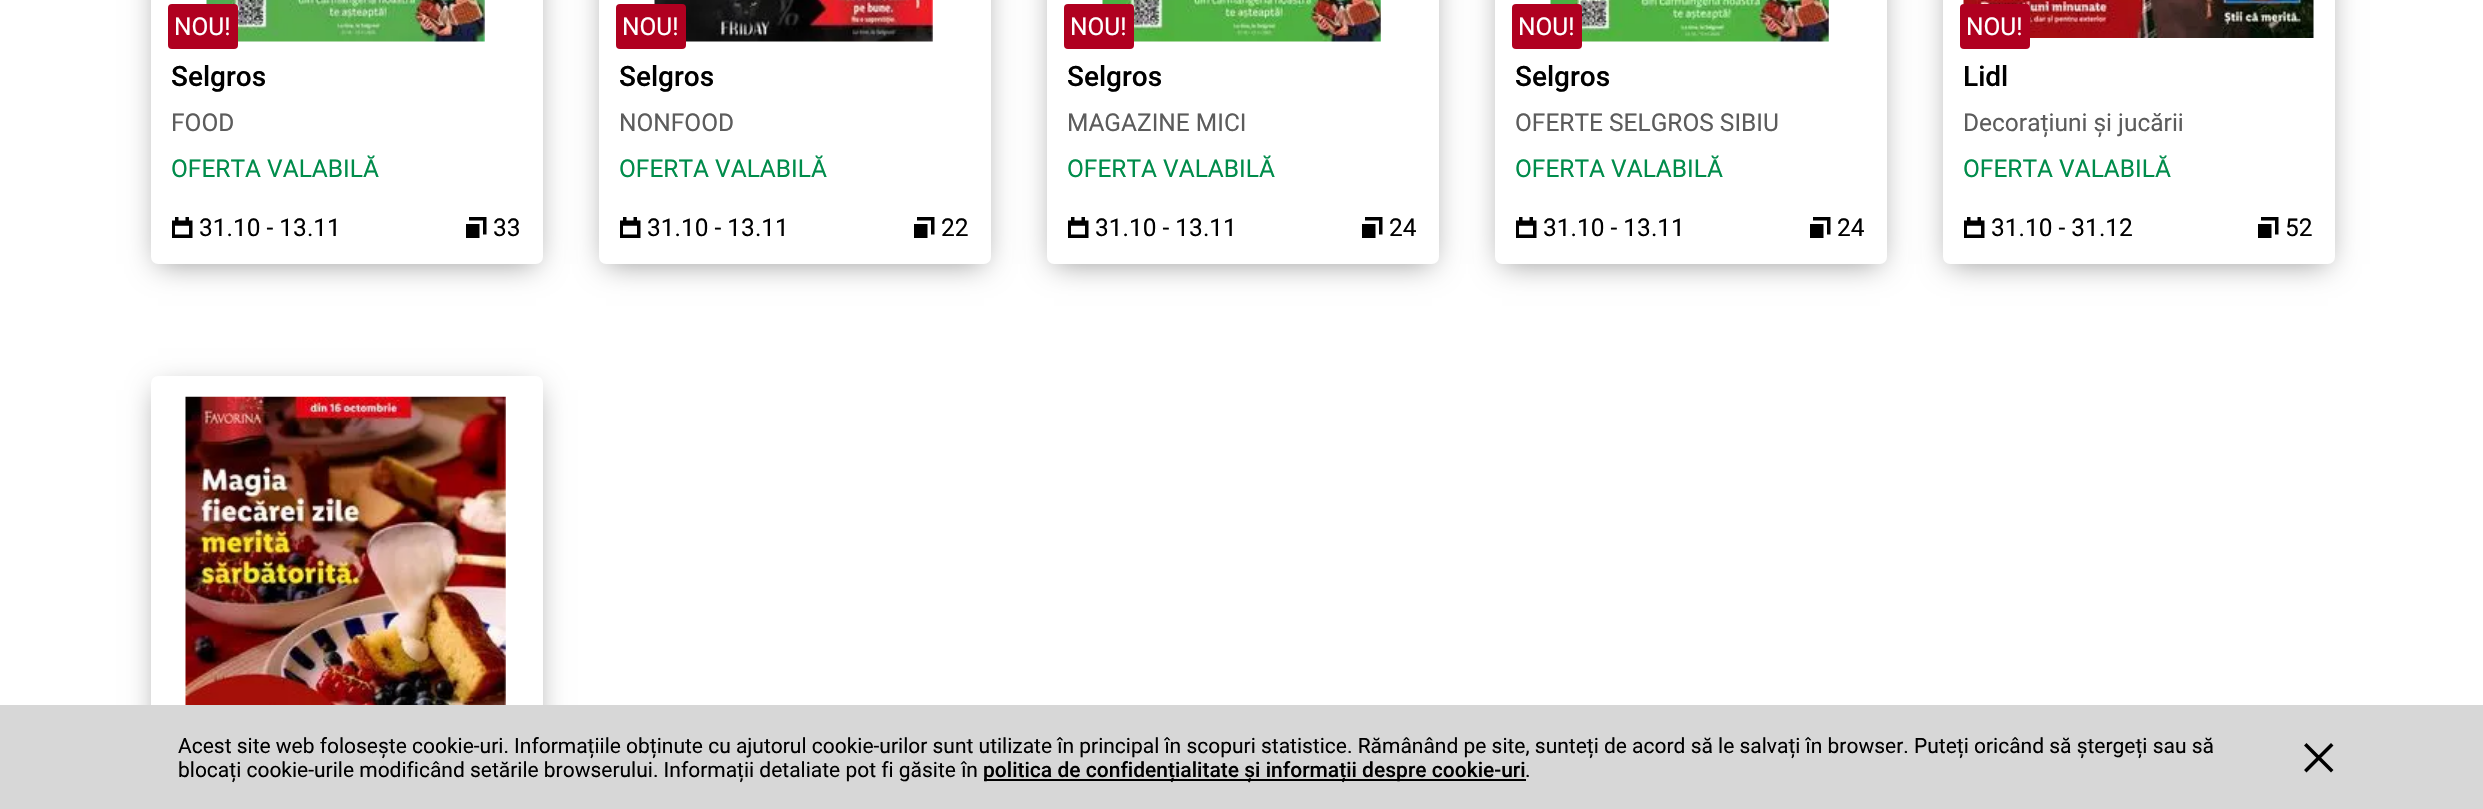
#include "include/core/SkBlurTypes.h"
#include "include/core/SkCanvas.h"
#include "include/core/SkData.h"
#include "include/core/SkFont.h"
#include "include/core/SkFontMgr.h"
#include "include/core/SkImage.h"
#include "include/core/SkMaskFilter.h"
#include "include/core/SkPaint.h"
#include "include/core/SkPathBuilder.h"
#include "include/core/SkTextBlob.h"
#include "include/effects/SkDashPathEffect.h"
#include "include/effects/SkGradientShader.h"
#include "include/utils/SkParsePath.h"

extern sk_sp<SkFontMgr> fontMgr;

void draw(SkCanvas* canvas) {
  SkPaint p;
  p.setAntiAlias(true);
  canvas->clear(SK_ColorWHITE);
  p.setColor(SkColorSetARGB(102, 0, 0, 0));
  p.setMaskFilter(SkMaskFilter::MakeBlur(kNormal_SkBlurStyle, 14));
  canvas->drawRect(SkRect::MakeLTRB(158, -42, 536, 264), p);
  p.setMaskFilter(nullptr);
  p.setColor(SK_ColorWHITE);
  canvas->drawRoundRect(SkRect::MakeLTRB(151, -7, 543, 264), 7, 7, p);
  canvas->drawImageRect(SkImages::DeferredFromEncodedData(SkData::MakeFromFileName("images/1.png")), SkRect::MakeLTRB(206, 0, 485, 42), SkSamplingOptions());
  p.setColor(SkColorSetRGB(176, 0, 32));
  canvas->drawRoundRect(SkRect::MakeLTRB(168, 4, 238, 49), 4, 4, p);
  canvas->drawImageRect(SkImages::DeferredFromEncodedData(SkData::MakeFromFileName("images/2.png")), SkRect::MakeLTRB(172, 217, 193, 238), SkSamplingOptions());
  canvas->drawImageRect(SkImages::DeferredFromEncodedData(SkData::MakeFromFileName("images/3.png")), SkRect::MakeLTRB(466, 217, 487, 238), SkSamplingOptions());
  p.setColor(SkColorSetARGB(102, 0, 0, 0));
  p.setMaskFilter(SkMaskFilter::MakeBlur(kNormal_SkBlurStyle, 14));
  canvas->drawRect(SkRect::MakeLTRB(606, -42, 984, 264), p);
  p.setMaskFilter(nullptr);
  p.setColor(SK_ColorWHITE);
  canvas->drawRoundRect(SkRect::MakeLTRB(599, -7, 991, 264), 7, 7, p);
  canvas->drawImageRect(SkImages::DeferredFromEncodedData(SkData::MakeFromFileName("images/4.png")), SkRect::MakeLTRB(654, 0, 933, 42), SkSamplingOptions());
  p.setColor(SkColorSetRGB(176, 0, 32));
  canvas->drawRoundRect(SkRect::MakeLTRB(616, 4, 686, 49), 4, 4, p);
  canvas->drawImageRect(SkImages::DeferredFromEncodedData(SkData::MakeFromFileName("images/2.png")), SkRect::MakeLTRB(620, 217, 641, 238), SkSamplingOptions());
  canvas->drawImageRect(SkImages::DeferredFromEncodedData(SkData::MakeFromFileName("images/3.png")), SkRect::MakeLTRB(914, 217, 935, 238), SkSamplingOptions());
  p.setColor(SkColorSetARGB(102, 0, 0, 0));
  p.setMaskFilter(SkMaskFilter::MakeBlur(kNormal_SkBlurStyle, 14));
  canvas->drawRect(SkRect::MakeLTRB(1054, -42, 1432, 264), p);
  p.setMaskFilter(nullptr);
  p.setColor(SK_ColorWHITE);
  canvas->drawRoundRect(SkRect::MakeLTRB(1047, -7, 1439, 264), 7, 7, p);
  canvas->drawImageRect(SkImages::DeferredFromEncodedData(SkData::MakeFromFileName("images/5.png")), SkRect::MakeLTRB(1102, 0, 1381, 42), SkSamplingOptions());
  p.setColor(SkColorSetRGB(176, 0, 32));
  canvas->drawRoundRect(SkRect::MakeLTRB(1064, 4, 1134, 49), 4, 4, p);
  canvas->drawImageRect(SkImages::DeferredFromEncodedData(SkData::MakeFromFileName("images/2.png")), SkRect::MakeLTRB(1068, 217, 1089, 238), SkSamplingOptions());
  canvas->drawImageRect(SkImages::DeferredFromEncodedData(SkData::MakeFromFileName("images/3.png")), SkRect::MakeLTRB(1362, 217, 1383, 238), SkSamplingOptions());
  p.setColor(SkColorSetARGB(102, 0, 0, 0));
  p.setMaskFilter(SkMaskFilter::MakeBlur(kNormal_SkBlurStyle, 14));
  canvas->drawRect(SkRect::MakeLTRB(1502, -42, 1880, 264), p);
  p.setMaskFilter(nullptr);
  p.setColor(SK_ColorWHITE);
  canvas->drawRoundRect(SkRect::MakeLTRB(1495, -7, 1887, 264), 7, 7, p);
  canvas->drawImageRect(SkImages::DeferredFromEncodedData(SkData::MakeFromFileName("images/6.png")), SkRect::MakeLTRB(1550, 0, 1829, 42), SkSamplingOptions());
  p.setColor(SkColorSetRGB(176, 0, 32));
  canvas->drawRoundRect(SkRect::MakeLTRB(1512, 4, 1582, 49), 4, 4, p);
  canvas->drawImageRect(SkImages::DeferredFromEncodedData(SkData::MakeFromFileName("images/2.png")), SkRect::MakeLTRB(1516, 217, 1537, 238), SkSamplingOptions());
  canvas->drawImageRect(SkImages::DeferredFromEncodedData(SkData::MakeFromFileName("images/3.png")), SkRect::MakeLTRB(1810, 217, 1831, 238), SkSamplingOptions());
  p.setColor(SkColorSetARGB(102, 0, 0, 0));
  p.setMaskFilter(SkMaskFilter::MakeBlur(kNormal_SkBlurStyle, 14));
  canvas->drawRect(SkRect::MakeLTRB(1950, -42, 2328, 264), p);
  p.setMaskFilter(nullptr);
  p.setColor(SK_ColorWHITE);
  canvas->drawRoundRect(SkRect::MakeLTRB(1943, -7, 2335, 264), 7, 7, p);
  canvas->drawImageRect(SkImages::DeferredFromEncodedData(SkData::MakeFromFileName("images/7.png")), SkRect::MakeLTRB(1963, 0, 2314, 38), SkSamplingOptions());
  p.setColor(SkColorSetRGB(176, 0, 32));
  canvas->drawRoundRect(SkRect::MakeLTRB(1960, 4, 2030, 49), 4, 4, p);
  canvas->drawImageRect(SkImages::DeferredFromEncodedData(SkData::MakeFromFileName("images/2.png")), SkRect::MakeLTRB(1964, 217, 1985, 238), SkSamplingOptions());
  canvas->drawImageRect(SkImages::DeferredFromEncodedData(SkData::MakeFromFileName("images/3.png")), SkRect::MakeLTRB(2258, 217, 2279, 238), SkSamplingOptions());
  p.setColor(SkColorSetARGB(102, 0, 0, 0));
  p.setMaskFilter(SkMaskFilter::MakeBlur(kNormal_SkBlurStyle, 14));
  canvas->drawRect(SkRect::MakeLTRB(158, 390, 536, 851), p);
  p.setMaskFilter(nullptr);
  p.setColor(SK_ColorWHITE);
  canvas->drawRoundRect(SkRect::MakeLTRB(151, 376, 543, 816), 7, 7, p);
  canvas->drawImageRect(SkImages::DeferredFromEncodedData(SkData::MakeFromFileName("images/8.png")), SkRect::MakeLTRB(185, 396, 506, 705), SkSamplingOptions());
  p.setColor(SkColorSetRGB(215, 215, 215));
  canvas->drawRect(SkRect::MakeLTRB(0, 705, 2483, 809), p);
  p.setColor(SK_ColorBLACK);
  canvas->drawRect(SkRect::MakeLTRB(984, 779, 1526, 781), p);
  p.setStyle(SkPaint::kStroke_Style);
  p.setStrokeWidth(3.5f);
  p.setStrokeCap(SkPaint::kSquare_Cap);
  canvas->drawPath(SkPathBuilder().moveTo(2331, 745.5f).lineTo(2306.5f, 770).moveTo(2331, 770).lineTo(2306.5f, 745.5f).detach(), p);
  SkFont font1(fontMgr->matchFamilyStyle("Roboto", SkFontStyle::Normal()), 24.5f);
  font1.setSubpixel(true);
  p.setStyle(SkPaint::kFill_Style);
  p.setColor(SK_ColorWHITE);
  canvas->drawString("NOU!", 174, 35, font1, p);
  SkFont font2(fontMgr->matchFamilyStyle("Roboto", SkFontStyle(500, SkFontStyle::kNormal_Width, SkFontStyle::kUpright_Slant)), 28);
  font2.setSubpixel(true);
  p.setColor(SK_ColorBLACK);
  canvas->drawString("Selgros", 171, 86, font2, p);
  p.setColor(SkColorSetRGB(92, 92, 92));
  canvas->drawString("FOOD", 171, 131, font1, p);
  p.setColor(SkColorSetRGB(0, 140, 75));
  canvas->drawString("OFERTA VALABILĂ", 171, 177, font1, p);
  p.setColor(SK_ColorBLACK);
  canvas->drawString("31.10 - 13.11", 199, 236, font1, p);
  canvas->drawString("33", 493, 236, font1, p);
  p.setColor(SK_ColorWHITE);
  canvas->drawString("NOU!", 622, 35, font1, p);
  p.setColor(SK_ColorBLACK);
  canvas->drawString("Selgros", 619, 86, font2, p);
  p.setColor(SkColorSetRGB(92, 92, 92));
  canvas->drawString("NONFOOD", 619, 131, font1, p);
  p.setColor(SkColorSetRGB(0, 140, 75));
  canvas->drawString("OFERTA VALABILĂ", 619, 177, font1, p);
  p.setColor(SK_ColorBLACK);
  canvas->drawString("31.10 - 13.11", 647, 236, font1, p);
  canvas->drawString("22", 941, 236, font1, p);
  p.setColor(SK_ColorWHITE);
  canvas->drawString("NOU!", 1070, 35, font1, p);
  p.setColor(SK_ColorBLACK);
  canvas->drawString("Selgros", 1067, 86, font2, p);
  p.setColor(SkColorSetRGB(92, 92, 92));
  canvas->drawString("MAGAZINE MICI", 1067, 131, font1, p);
  p.setColor(SkColorSetRGB(0, 140, 75));
  canvas->drawString("OFERTA VALABILĂ", 1067, 177, font1, p);
  p.setColor(SK_ColorBLACK);
  canvas->drawString("31.10 - 13.11", 1095, 236, font1, p);
  canvas->drawString("24", 1389, 236, font1, p);
  p.setColor(SK_ColorWHITE);
  canvas->drawString("NOU!", 1518, 35, font1, p);
  p.setColor(SK_ColorBLACK);
  canvas->drawString("Selgros", 1515, 86, font2, p);
  p.setColor(SkColorSetRGB(92, 92, 92));
  canvas->drawString("OFERTE SELGROS SIBIU", 1515, 131, font1, p);
  p.setColor(SkColorSetRGB(0, 140, 75));
  canvas->drawString("OFERTA VALABILĂ", 1515, 177, font1, p);
  p.setColor(SK_ColorBLACK);
  canvas->drawString("31.10 - 13.11", 1543, 236, font1, p);
  canvas->drawString("24", 1837, 236, font1, p);
  p.setColor(SK_ColorWHITE);
  canvas->drawString("NOU!", 1966, 35, font1, p);
  p.setColor(SK_ColorBLACK);
  canvas->drawString("Lidl", 1963, 86, font2, p);
  p.setColor(SkColorSetRGB(92, 92, 92));
  canvas->drawString("Decorațiuni și jucării", 1963, 131, font1, p);
  p.setColor(SkColorSetRGB(0, 140, 75));
  canvas->drawString("OFERTA VALABILĂ", 1963, 177, font1, p);
  p.setColor(SK_ColorBLACK);
  canvas->drawString("31.10 - 31.12", 1991, 236, font1, p);
  canvas->drawString("52", 2285, 236, font1, p);
  SkFont font3(fontMgr->matchFamilyStyle("Roboto", SkFontStyle::Normal()), 21);
  font3.setSubpixel(true);
  canvas->drawString("Acest site web folosește cookie-uri. Informațiile obținute cu ajutorul cookie-urilor sunt utilizate în principal în scopuri statistice. Rămânând pe site, sunteți de acord să le salvați în browser. Puteți oricând să ștergeți sau să", 178, 753, font3, p);
  canvas->drawString("blocați cookie-urile modificând setările browserului. Informații detaliate pot fi găsite în", 178, 777, font3, p);
  SkFont font4(fontMgr->matchFamilyStyle("Roboto", SkFontStyle(500, SkFontStyle::kNormal_Width, SkFontStyle::kUpright_Slant)), 21);
  font4.setSubpixel(true);
  canvas->drawString("politica de confidențialitate și informații despre cookie-uri", 983, 777, font4, p);
  canvas->drawString(".", 1525, 777, font3, p);
}
